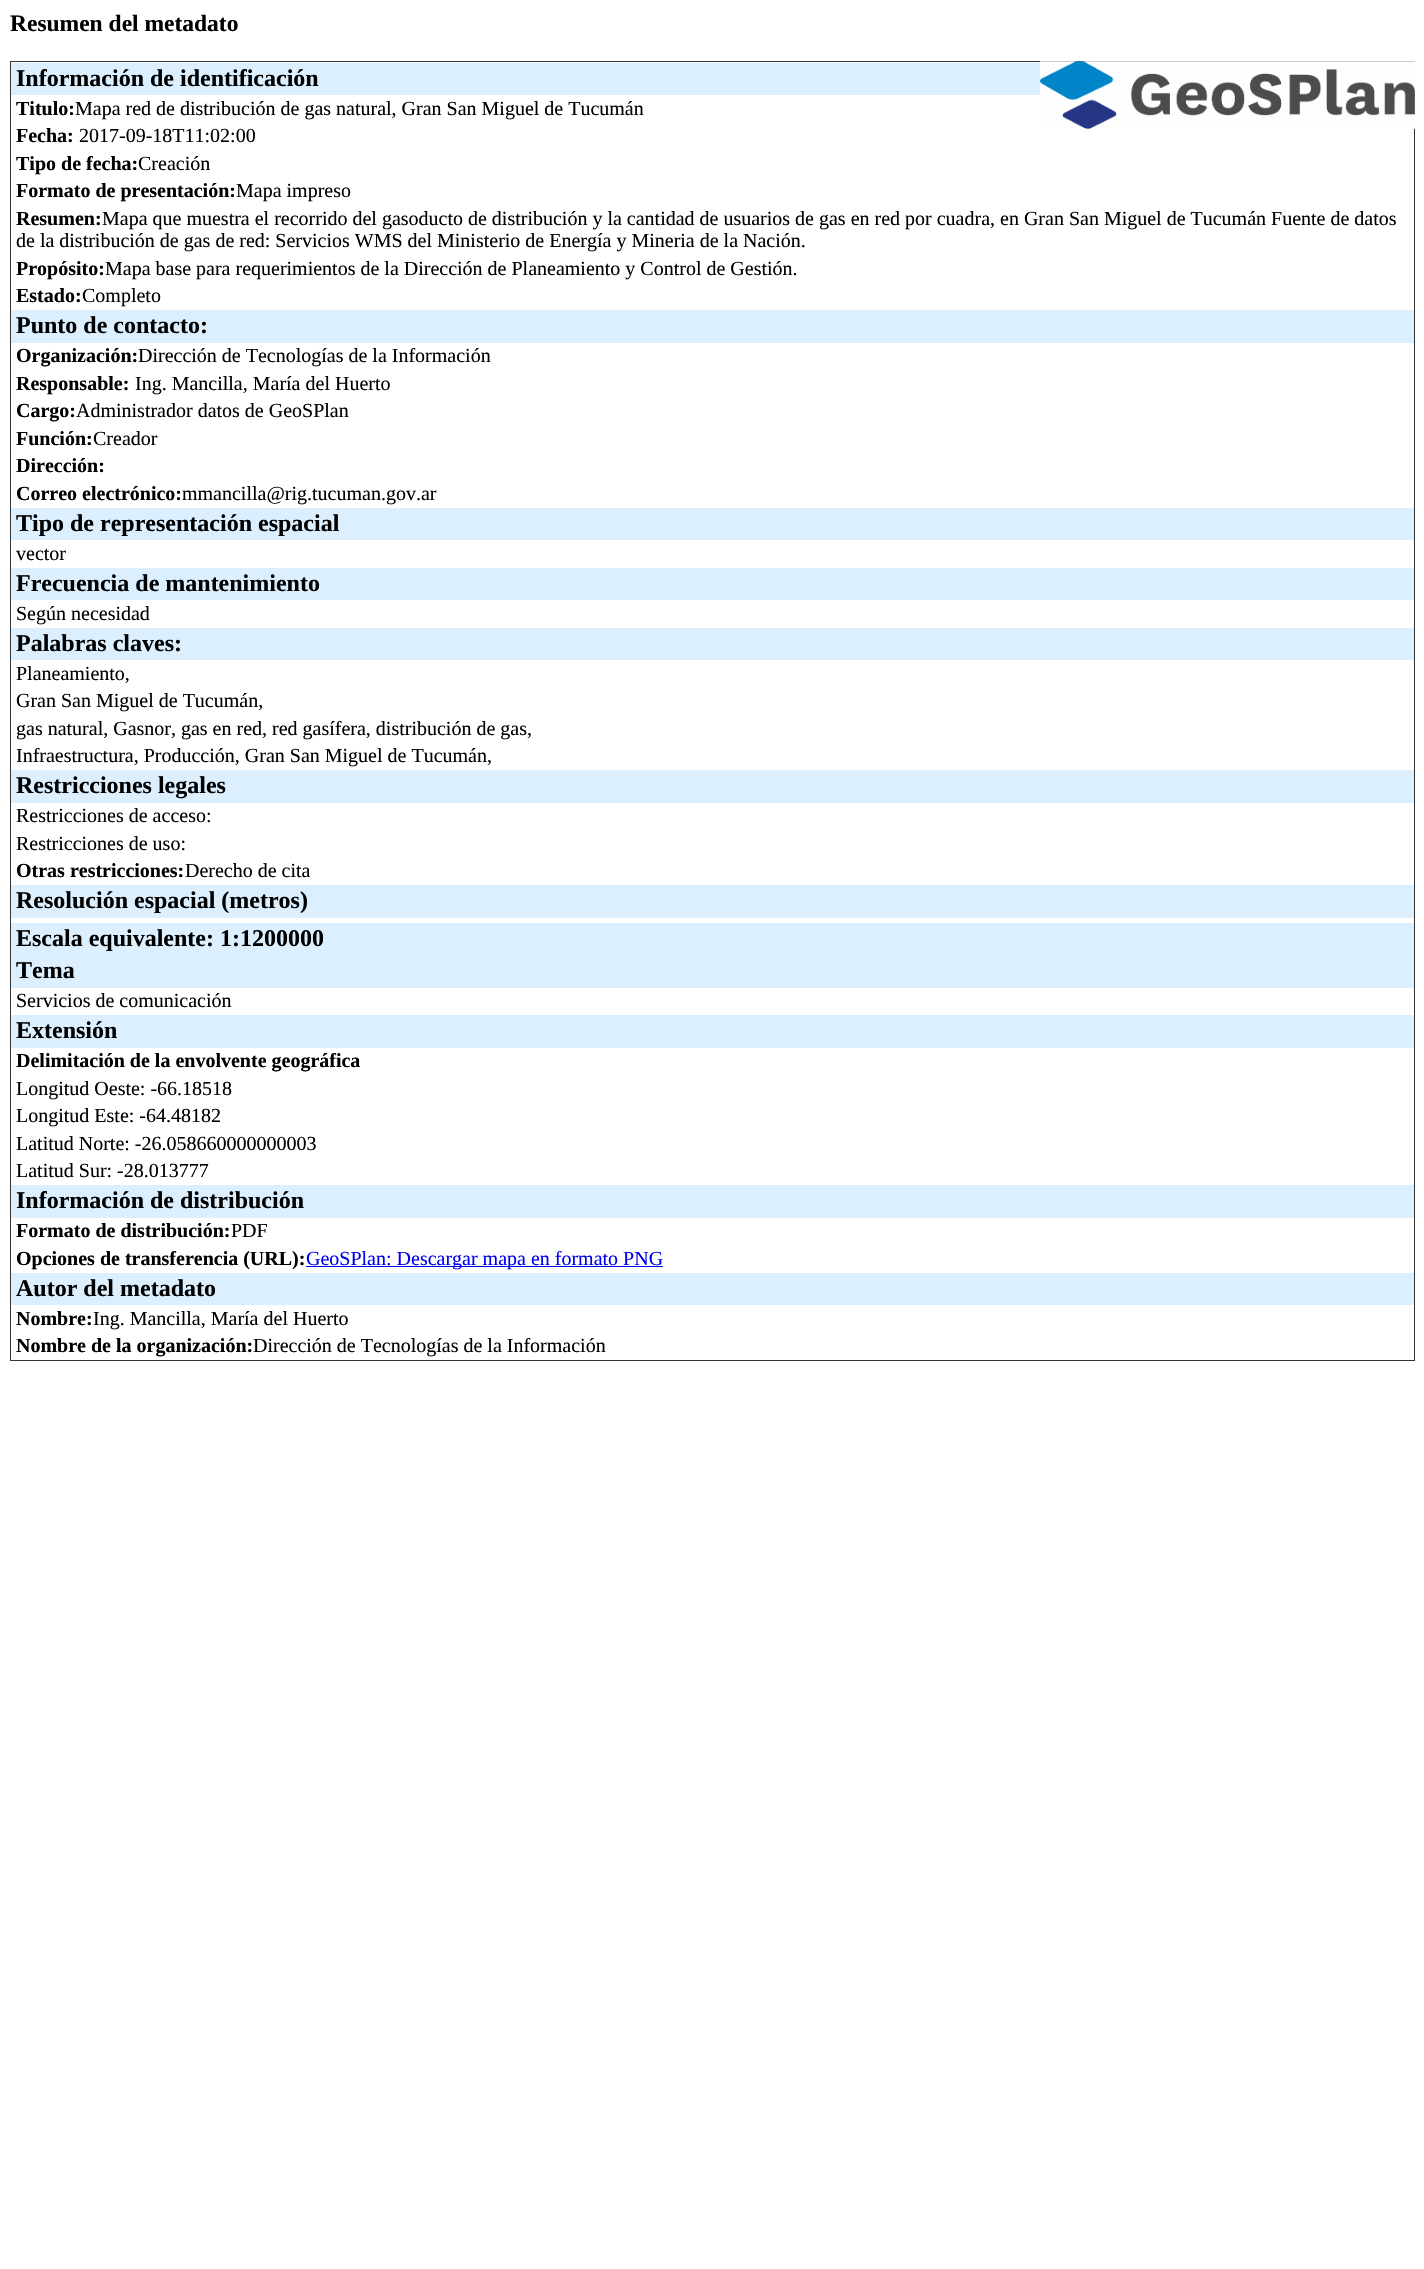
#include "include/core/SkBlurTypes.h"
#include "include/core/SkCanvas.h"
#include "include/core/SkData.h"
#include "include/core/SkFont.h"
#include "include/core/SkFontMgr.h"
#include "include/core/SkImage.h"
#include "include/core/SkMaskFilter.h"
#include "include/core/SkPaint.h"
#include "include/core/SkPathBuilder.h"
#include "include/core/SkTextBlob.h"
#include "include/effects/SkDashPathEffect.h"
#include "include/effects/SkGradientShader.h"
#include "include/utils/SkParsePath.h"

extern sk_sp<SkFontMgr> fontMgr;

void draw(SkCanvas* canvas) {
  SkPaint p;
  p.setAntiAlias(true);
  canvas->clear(SK_ColorWHITE);
  p.setStyle(SkPaint::kStroke_Style);
  p.setStrokeWidth(1);
  p.setColor(SkColorSetRGB(51, 51, 51));
  canvas->drawRect(SkRect::MakeLTRB(10.5f, 61.5f, 1414.5f, 1360.5f), p);
  canvas->drawImageRect(SkImages::DeferredFromEncodedData(SkData::MakeFromFileName("images/1.png")), SkRect::MakeLTRB(1040, 61, 1415, 129), SkSamplingOptions());
  p.setStyle(SkPaint::kFill_Style);
  p.setColor(SkColorSetRGB(219, 239, 255));
  canvas->drawRect(SkRect::MakeLTRB(11, 63, 1040, 95), p);
  canvas->drawRect(SkRect::MakeLTRB(11, 310, 1414, 343), p);
  canvas->drawRect(SkRect::MakeLTRB(11, 508, 1414, 540), p);
  canvas->drawRect(SkRect::MakeLTRB(11, 568, 1414, 600), p);
  canvas->drawRect(SkRect::MakeLTRB(11, 628, 1414, 660), p);
  canvas->drawRect(SkRect::MakeLTRB(11, 770, 1414, 803), p);
  canvas->drawRect(SkRect::MakeLTRB(11, 885, 1414, 918), p);
  canvas->drawRect(SkRect::MakeLTRB(11, 923, 1414, 988), p);
  canvas->drawRect(SkRect::MakeLTRB(11, 1015, 1414, 1048), p);
  canvas->drawRect(SkRect::MakeLTRB(11, 1185, 1414, 1218), p);
  p.setColor(SkColorSetRGB(0, 0, 238));
  canvas->drawRect(SkRect::MakeLTRB(306, 1266, 663, 1267), p);
  p.setColor(SkColorSetRGB(219, 239, 255));
  canvas->drawRect(SkRect::MakeLTRB(11, 1273, 1414, 1305), p);
  SkFont font1(fontMgr->matchFamilyStyle("Liberation Serif", SkFontStyle::Bold()), 23.5f);
  font1.setSubpixel(true);
  p.setColor(SK_ColorBLACK);
  canvas->drawString("Resumen del metadato", 10, 31, font1, p);
  SkFont font2(fontMgr->matchFamilyStyle("Liberation Serif", SkFontStyle::Bold()), 24);
  font2.setSubpixel(true);
  canvas->drawString("Información de identificación", 16, 86, font2, p);
  SkFont font3(fontMgr->matchFamilyStyle("Liberation Serif", SkFontStyle::Bold()), 20);
  font3.setSubpixel(true);
  canvas->drawString("Titulo:", 16, 115, font3, p);
  SkFont font4(fontMgr->matchFamilyStyle("Liberation Serif", SkFontStyle::Normal()), 20);
  font4.setSubpixel(true);
  canvas->drawString("Mapa red de distribución de gas natural, Gran San Miguel de Tucumán", 75, 115, font4, p);
  canvas->drawString("Fecha:", 16, 142, font3, p);
  canvas->drawString("2017-09-18T11:02:00", 79, 142, font4, p);
  canvas->drawString("Tipo de fecha:", 16, 170, font3, p);
  canvas->drawString("Creación", 138, 170, font4, p);
  canvas->drawString("Formato de presentación:", 16, 197, font3, p);
  canvas->drawString("Mapa impreso", 236, 197, font4, p);
  canvas->drawString("Resumen:", 16, 225, font3, p);
  canvas->drawString("Mapa que muestra el recorrido del gasoducto de distribución y la cantidad de usuarios de gas en red por cuadra, en Gran San Miguel de Tucumán Fuente de datos", 102, 225, font4, p);
  canvas->drawString("de la distribución de gas de red: Servicios WMS del Ministerio de Energía y Mineria de la Nación.", 16, 247, font4, p);
  canvas->drawString("Propósito:", 16, 275, font3, p);
  canvas->drawString("Mapa base para requerimientos de la Dirección de Planeamiento y Control de Gestión.", 105, 275, font4, p);
  canvas->drawString("Estado:", 16, 302, font3, p);
  canvas->drawString("Completo", 82, 302, font4, p);
  canvas->drawString("Punto de contacto:", 16, 333, font2, p);
  canvas->drawString("Organización:", 16, 362, font3, p);
  canvas->drawString("Dirección de Tecnologías de la Información", 138, 362, font4, p);
  canvas->drawString("Responsable:", 16, 390, font3, p);
  canvas->drawString("Ing. Mancilla, María del Huerto", 135, 390, font4, p);
  canvas->drawString("Cargo:", 16, 417, font3, p);
  canvas->drawString("Administrador datos de GeoSPlan", 76, 417, font4, p);
  canvas->drawString("Función:", 16, 445, font3, p);
  canvas->drawString("Creador", 93, 445, font4, p);
  canvas->drawString("Dirección:", 16, 472, font3, p);
  canvas->drawString("Correo electrónico:", 16, 500, font3, p);
  canvas->drawString("mmancilla@rig.tucuman.gov.ar", 182, 500, font4, p);
  canvas->drawString("Tipo de representación espacial", 16, 531, font2, p);
  canvas->drawString("vector", 16, 560, font4, p);
  canvas->drawString("Frecuencia de mantenimiento", 16, 591, font2, p);
  canvas->drawString("Según necesidad", 16, 620, font4, p);
  canvas->drawString("Palabras claves:", 16, 651, font2, p);
  canvas->drawString("Planeamiento,", 16, 680, font4, p);
  canvas->drawString("Gran San Miguel de Tucumán,", 16, 707, font4, p);
  canvas->drawString("gas natural, Gasnor, gas en red, red gasífera, distribución de gas,", 16, 735, font4, p);
  canvas->drawString("Infraestructura, Producción, Gran San Miguel de Tucumán,", 16, 762, font4, p);
  canvas->drawString("Restricciones legales", 16, 793, font2, p);
  canvas->drawString("Restricciones de acceso:", 16, 822, font4, p);
  canvas->drawString("Restricciones de uso:", 16, 850, font4, p);
  canvas->drawString("Otras restricciones:", 16, 877, font3, p);
  canvas->drawString("Derecho de cita", 185, 877, font4, p);
  canvas->drawString("Resolución espacial (metros)", 16, 908, font2, p);
  canvas->drawString("Escala equivalente: 1:1200000", 16, 946, font2, p);
  canvas->drawString("Tema", 16, 978, font2, p);
  canvas->drawString("Servicios de comunicación", 16, 1007, font4, p);
  canvas->drawString("Extensión", 16, 1038, font2, p);
  canvas->drawString("Delimitación de la envolvente geográfica", 16, 1067, font3, p);
  canvas->drawString("Longitud Oeste: -66.18518", 16, 1095, font4, p);
  canvas->drawString("Longitud Este: -64.48182", 16, 1122, font4, p);
  canvas->drawString("Latitud Norte: -26.058660000000003", 16, 1150, font4, p);
  canvas->drawString("Latitud Sur: -28.013777", 16, 1177, font4, p);
  canvas->drawString("Información de distribución", 16, 1208, font2, p);
  canvas->drawString("Formato de distribución:", 16, 1237, font3, p);
  canvas->drawString("PDF", 231, 1237, font4, p);
  canvas->drawString("Opciones de transferencia (URL):", 16, 1265, font3, p);
  p.setColor(SkColorSetRGB(0, 0, 238));
  canvas->drawString("GeoSPlan: Descargar mapa en formato PNG", 306, 1265, font4, p);
  p.setColor(SK_ColorBLACK);
  canvas->drawString("Autor del metadato", 16, 1296, font2, p);
  canvas->drawString("Nombre:", 16, 1325, font3, p);
  canvas->drawString("Ing. Mancilla, María del Huerto", 93, 1325, font4, p);
  canvas->drawString("Nombre de la organización:", 16, 1352, font3, p);
  canvas->drawString("Dirección de Tecnologías de la Información", 253, 1352, font4, p);
}
